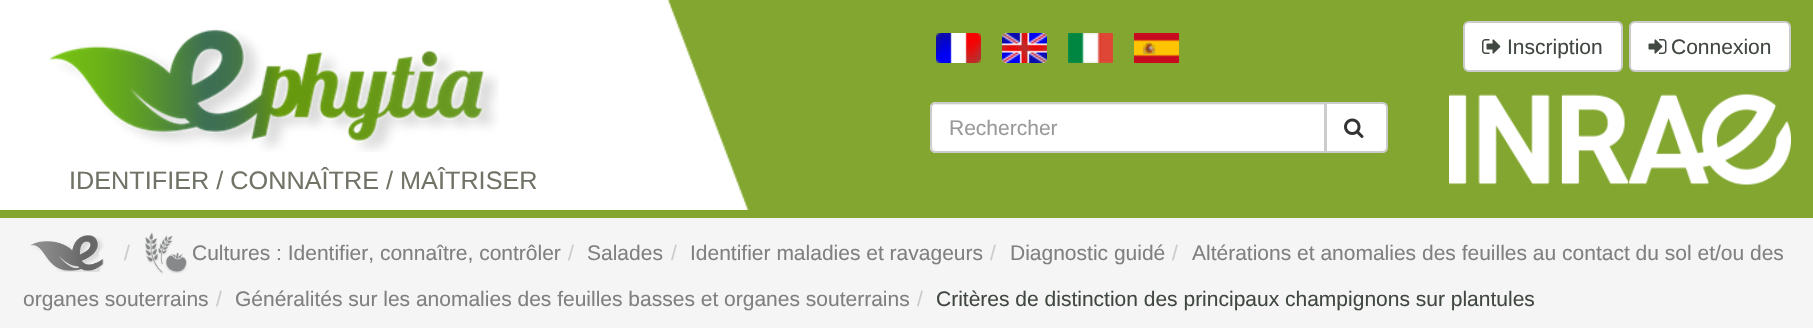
#include "include/core/SkBlurTypes.h"
#include "include/core/SkCanvas.h"
#include "include/core/SkData.h"
#include "include/core/SkFont.h"
#include "include/core/SkFontMgr.h"
#include "include/core/SkImage.h"
#include "include/core/SkMaskFilter.h"
#include "include/core/SkPaint.h"
#include "include/core/SkPathBuilder.h"
#include "include/core/SkTextBlob.h"
#include "include/effects/SkDashPathEffect.h"
#include "include/effects/SkGradientShader.h"
#include "include/utils/SkParsePath.h"

extern sk_sp<SkFontMgr> fontMgr;

void draw(SkCanvas* canvas) {
  SkPaint p;
  p.setAntiAlias(true);
  canvas->clear(SkColorSetRGB(245, 245, 245));
  p.setColor(SkColorSetRGB(130, 166, 47));
  canvas->drawRect(SkRect::MakeLTRB(0, 0, 1813, 218), p);
  canvas->drawImageRect(SkImages::DeferredFromEncodedData(SkData::MakeFromFileName("images/1.png")), SkRect::MakeLTRB(605, 0, 749, 210), SkSamplingOptions());
  canvas->drawImageRect(SkImages::DeferredFromEncodedData(SkData::MakeFromFileName("images/2.png")), SkRect::MakeLTRB(936, 33, 981, 63), SkSamplingOptions());
  canvas->drawImageRect(SkImages::DeferredFromEncodedData(SkData::MakeFromFileName("images/3.png")), SkRect::MakeLTRB(1002, 33, 1047, 63), SkSamplingOptions());
  canvas->drawImageRect(SkImages::DeferredFromEncodedData(SkData::MakeFromFileName("images/4.png")), SkRect::MakeLTRB(1068, 33, 1113, 63), SkSamplingOptions());
  canvas->drawImageRect(SkImages::DeferredFromEncodedData(SkData::MakeFromFileName("images/5.png")), SkRect::MakeLTRB(1134, 33, 1179, 63), SkSamplingOptions());
  p.setColor(SK_ColorWHITE);
  canvas->drawRoundRect(SkRect::MakeLTRB(1464, 22, 1622, 71), 5, 5, p);
  p.setStyle(SkPaint::kStroke_Style);
  p.setStrokeWidth(2);
  p.setColor(SkColorSetRGB(204, 204, 204));
  canvas->drawRoundRect(SkRect::MakeLTRB(1464, 22, 1622, 71), 5, 5, p);
  canvas->drawImageRect(SkImages::DeferredFromEncodedData(SkData::MakeFromFileName("images/6.png")), SkRect::MakeLTRB(1482, 39, 1501, 54), SkSamplingOptions());
  p.setStyle(SkPaint::kFill_Style);
  p.setColor(SK_ColorWHITE);
  canvas->drawRoundRect(SkRect::MakeLTRB(1630, 22, 1790, 71), 5, 5, p);
  p.setStyle(SkPaint::kStroke_Style);
  p.setColor(SkColorSetRGB(204, 204, 204));
  canvas->drawRoundRect(SkRect::MakeLTRB(1630, 22, 1790, 71), 5, 5, p);
  canvas->drawImageRect(SkImages::DeferredFromEncodedData(SkData::MakeFromFileName("images/7.png")), SkRect::MakeLTRB(1648, 39, 1667, 54), SkSamplingOptions());
  p.setStyle(SkPaint::kFill_Style);
  p.setColor(SK_ColorWHITE);
  canvas->drawPath(SkPathBuilder().moveTo(936, 102).lineTo(1326, 102).lineTo(1326, 153).lineTo(936, 153).cubicTo(932.5f, 153, 930, 150.5f, 930, 147).lineTo(930, 108).cubicTo(930, 104.5f, 932.5f, 102, 936, 102).close().detach(), p);
  p.setColor(SkColorSetRGB(236, 236, 236));
  canvas->drawPath(SkPathBuilder().moveTo(936, 105).lineTo(1324, 105).lineTo(1324, 152).lineTo(1325, 152).lineTo(1325, 104).lineTo(937, 104).cubicTo(934, 104, 932, 107, 932, 110).cubicTo(932, 107, 934, 105, 936, 105).close().detach(), p);
  p.setStyle(SkPaint::kStroke_Style);
  p.setColor(SkColorSetRGB(204, 204, 204));
  canvas->drawPath(SkPathBuilder().moveTo(936, 103).lineTo(1325, 103).lineTo(1325, 152).lineTo(936, 152).cubicTo(933, 152, 931, 150, 931, 147).lineTo(931, 108).cubicTo(931, 105, 933, 103, 936, 103).close().detach(), p);
  p.setStyle(SkPaint::kFill_Style);
  p.setColor(SK_ColorWHITE);
  canvas->drawPath(SkPathBuilder().moveTo(1326, 103).lineTo(1382, 103).cubicTo(1385, 103, 1387, 105, 1387, 108).lineTo(1387, 147).cubicTo(1387, 150, 1385, 152, 1382, 152).lineTo(1326, 152).close().detach(), p);
  p.setStyle(SkPaint::kStroke_Style);
  p.setColor(SkColorSetRGB(204, 204, 204));
  canvas->drawPath(SkPathBuilder().moveTo(1326, 103).lineTo(1382, 103).cubicTo(1385, 103, 1387, 105, 1387, 108).lineTo(1387, 147).cubicTo(1387, 150, 1385, 152, 1382, 152).lineTo(1326, 152).close().detach(), p);
  canvas->drawImageRect(SkImages::DeferredFromEncodedData(SkData::MakeFromFileName("images/8.png")), SkRect::MakeLTRB(1344, 118, 1364, 138), SkSamplingOptions());
  canvas->drawImageRect(SkImages::DeferredFromEncodedData(SkData::MakeFromFileName("images/9.png")), SkRect::MakeLTRB(1449, 94, 1791, 185), SkSamplingOptions());
  p.setStyle(SkPaint::kFill_Style);
  p.setColor(SK_ColorWHITE);
  canvas->drawRect(SkRect::MakeLTRB(0, 0, 605, 210), p);
  canvas->drawImageRect(SkImages::DeferredFromEncodedData(SkData::MakeFromFileName("images/10.png")), SkRect::MakeLTRB(49, 29, 499, 152), SkSamplingOptions());
  canvas->drawImageRect(SkImages::DeferredFromEncodedData(SkData::MakeFromFileName("images/11.png")), SkRect::MakeLTRB(30, 235, 104, 272), SkSamplingOptions());
  canvas->drawImageRect(SkImages::DeferredFromEncodedData(SkData::MakeFromFileName("images/12.png")), SkRect::MakeLTRB(145, 232, 187, 274), SkSamplingOptions());
  SkFont font1(fontMgr->matchFamilyStyle("Liberation Sans", SkFontStyle::Normal()), 21);
  font1.setSubpixel(true);
  p.setColor(SkColorSetRGB(65, 72, 65));
  canvas->drawString("Inscription", 1507, 54, font1, p);
  canvas->drawString("Connexion", 1671, 54, font1, p);
  p.setColor(SkColorSetRGB(153, 153, 153));
  canvas->drawString("Rechercher", 949, 135, font1, p);
  SkFont font2(fontMgr->matchFamilyStyle("Liberation Sans", SkFontStyle::Normal()), 25.25f);
  font2.setSubpixel(true);
  p.setColor(SkColorSetRGB(112, 116, 103));
  canvas->drawString("IDENTIFIER / CONNAÎTRE / MAÎTRISER", 69, 189, font2, p);
  p.setColor(SkColorSetRGB(204, 204, 204));
  canvas->drawString("/", 124, 260, font1, p);
  p.setColor(SkColorSetRGB(128, 128, 128));
  canvas->drawString("Cultures : Identifier, connaître, contrôler", 192, 260, font1, p);
  p.setColor(SkColorSetRGB(204, 204, 204));
  canvas->drawString("/", 568, 260, font1, p);
  p.setColor(SkColorSetRGB(128, 128, 128));
  canvas->drawString("Salades", 587, 260, font1, p);
  p.setColor(SkColorSetRGB(204, 204, 204));
  canvas->drawString("/", 671, 260, font1, p);
  p.setColor(SkColorSetRGB(128, 128, 128));
  canvas->drawString("Identifier maladies et ravageurs", 690, 260, font1, p);
  p.setColor(SkColorSetRGB(204, 204, 204));
  canvas->drawString("/", 990, 260, font1, p);
  p.setColor(SkColorSetRGB(128, 128, 128));
  canvas->drawString("Diagnostic guidé", 1010, 260, font1, p);
  p.setColor(SkColorSetRGB(204, 204, 204));
  canvas->drawString("/", 1172, 260, font1, p);
  p.setColor(SkColorSetRGB(128, 128, 128));
  canvas->drawString("Altérations et anomalies des feuilles au contact du sol et/ou des", 1192, 260, font1, p);
  canvas->drawString("organes souterrains", 23, 306, font1, p);
  p.setColor(SkColorSetRGB(204, 204, 204));
  canvas->drawString("/", 216, 306, font1, p);
  p.setColor(SkColorSetRGB(128, 128, 128));
  canvas->drawString("Généralités sur les anomalies des feuilles basses et organes souterrains", 235, 306, font1, p);
  p.setColor(SkColorSetRGB(204, 204, 204));
  canvas->drawString("/", 917, 306, font1, p);
  p.setColor(SkColorSetRGB(65, 72, 65));
  canvas->drawString("Critères de distinction des principaux champignons sur plantules", 936, 306, font1, p);
}
